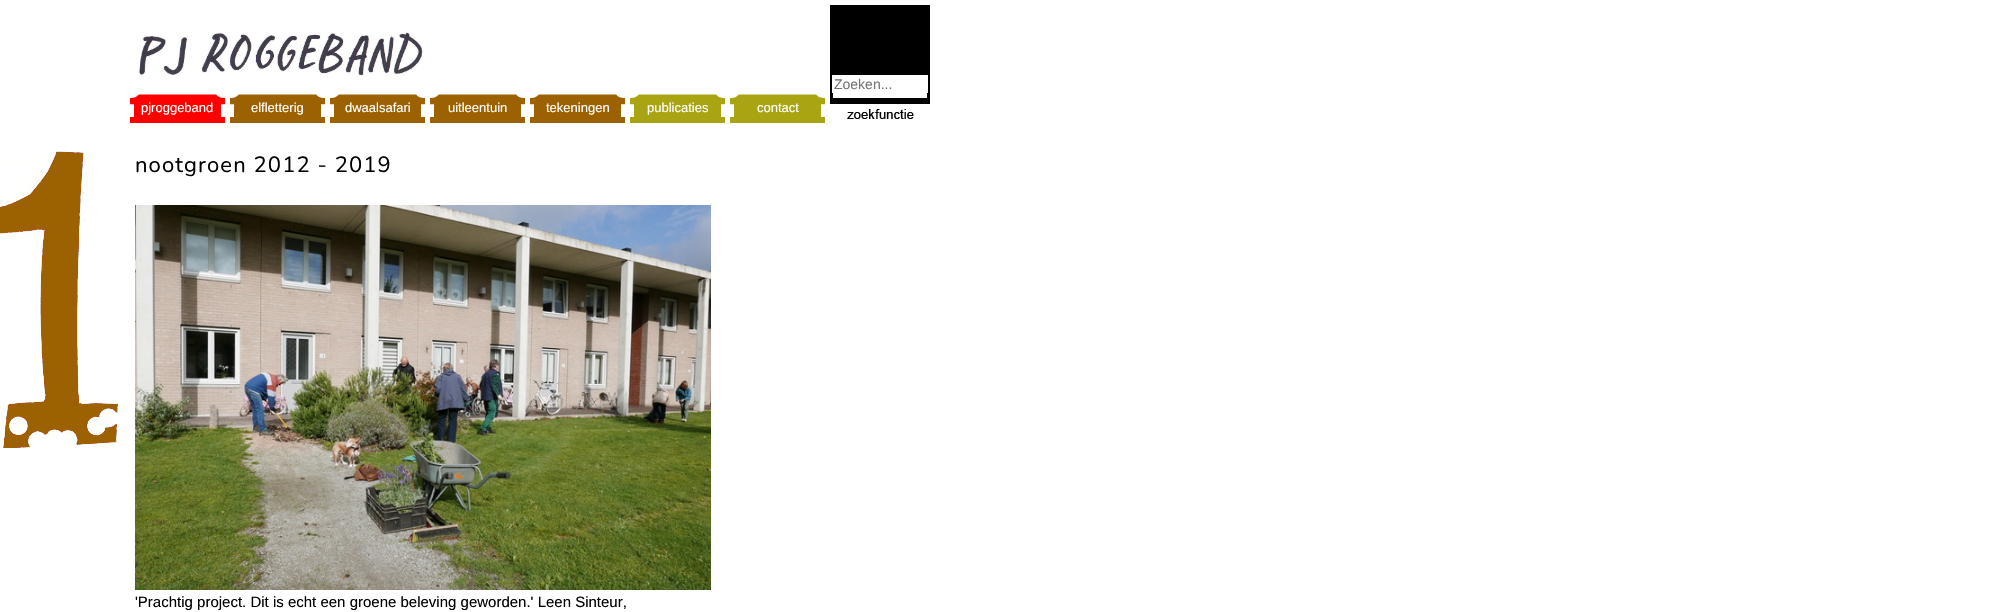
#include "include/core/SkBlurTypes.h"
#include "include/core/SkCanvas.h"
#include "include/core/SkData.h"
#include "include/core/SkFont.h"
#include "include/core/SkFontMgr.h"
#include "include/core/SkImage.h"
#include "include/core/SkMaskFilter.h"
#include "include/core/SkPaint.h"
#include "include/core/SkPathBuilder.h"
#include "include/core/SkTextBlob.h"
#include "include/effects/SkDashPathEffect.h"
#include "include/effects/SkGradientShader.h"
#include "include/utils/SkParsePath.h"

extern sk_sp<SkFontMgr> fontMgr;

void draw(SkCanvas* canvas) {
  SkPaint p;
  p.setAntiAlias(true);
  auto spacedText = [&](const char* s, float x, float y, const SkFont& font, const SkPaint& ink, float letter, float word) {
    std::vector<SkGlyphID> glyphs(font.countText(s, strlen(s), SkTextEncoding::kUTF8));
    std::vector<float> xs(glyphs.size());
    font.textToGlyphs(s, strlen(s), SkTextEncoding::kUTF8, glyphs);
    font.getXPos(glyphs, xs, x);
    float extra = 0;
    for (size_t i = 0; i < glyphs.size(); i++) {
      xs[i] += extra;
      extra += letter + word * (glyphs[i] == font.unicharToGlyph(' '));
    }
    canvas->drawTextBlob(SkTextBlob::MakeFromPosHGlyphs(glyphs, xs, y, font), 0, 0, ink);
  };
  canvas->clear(SK_ColorWHITE);
  canvas->drawImageRect(SkImages::DeferredFromEncodedData(SkData::MakeFromFileName("images/1.png")), SkRect::MakeLTRB(137, 32, 424, 77), SkSamplingOptions());
  canvas->drawImageRect(SkImages::DeferredFromEncodedData(SkData::MakeFromFileName("images/2.png")), SkRect::MakeLTRB(830, 5, 930, 119), SkSamplingOptions());
  p.setColor(SK_ColorWHITE);
  canvas->drawRect(SkRect::MakeLTRB(832, 75, 928, 93), p);
  canvas->drawImageRect(SkImages::DeferredFromEncodedData(SkData::MakeFromFileName("images/3.png")), SkRect::MakeLTRB(130, 94, 225, 123), SkSamplingOptions());
  canvas->drawImageRect(SkImages::DeferredFromEncodedData(SkData::MakeFromFileName("images/4.png")), SkRect::MakeLTRB(230, 94, 325, 123), SkSamplingOptions());
  canvas->drawImageRect(SkImages::DeferredFromEncodedData(SkData::MakeFromFileName("images/4.png")), SkRect::MakeLTRB(330, 94, 425, 123), SkSamplingOptions());
  canvas->drawImageRect(SkImages::DeferredFromEncodedData(SkData::MakeFromFileName("images/4.png")), SkRect::MakeLTRB(430, 94, 525, 123), SkSamplingOptions());
  canvas->drawImageRect(SkImages::DeferredFromEncodedData(SkData::MakeFromFileName("images/4.png")), SkRect::MakeLTRB(530, 94, 625, 123), SkSamplingOptions());
  canvas->drawImageRect(SkImages::DeferredFromEncodedData(SkData::MakeFromFileName("images/5.png")), SkRect::MakeLTRB(630, 94, 725, 123), SkSamplingOptions());
  canvas->drawImageRect(SkImages::DeferredFromEncodedData(SkData::MakeFromFileName("images/5.png")), SkRect::MakeLTRB(730, 94, 825, 123), SkSamplingOptions());
  canvas->drawImageRect(SkImages::DeferredFromEncodedData(SkData::MakeFromFileName("images/6.png")), SkRect::MakeLTRB(0, 150, 118, 448), SkSamplingOptions());
  canvas->drawImageRect(SkImages::DeferredFromEncodedData(SkData::MakeFromFileName("images/7.png")), SkRect::MakeLTRB(135, 205, 711, 590), SkSamplingOptions());
  SkFont font1(fontMgr->matchFamilyStyle("Liberation Sans", SkFontStyle::Normal()), 14);
  font1.setSubpixel(true);
  p.setColor(SkColorSetRGB(117, 117, 117));
  canvas->drawString("Zoeken...", 834, 89, font1, p);
  SkFont font2(fontMgr->matchFamilyStyle("Liberation Sans", SkFontStyle::Normal()), 13);
  font2.setSubpixel(true);
  p.setColor(SK_ColorWHITE);
  canvas->drawString("pjroggeband", 141, 112, font2, p);
  canvas->drawString("elfletterig", 251, 112, font2, p);
  canvas->drawString("dwaalsafari", 345, 112, font2, p);
  canvas->drawString("uitleentuin", 448, 112, font2, p);
  canvas->drawString("tekeningen", 546, 112, font2, p);
  canvas->drawString("publicaties", 647, 112, font2, p);
  canvas->drawString("contact", 757, 112, font2, p);
  SkFont font3(fontMgr->matchFamilyStyle("Nunito", SkFontStyle::Normal()), 22);
  font3.setSubpixel(true);
  p.setColor(SK_ColorBLACK);
  spacedText("nootgroen 2012 - 2019", 135, 172, font3, p, 1.1f, 0);
  SkFont font4(fontMgr->matchFamilyStyle("Liberation Sans", SkFontStyle::Normal()), 15);
  font4.setSubpixel(true);
  canvas->drawString("'Prachtig project. Dit is echt een groene beleving geworden.' Leen Sinteur,", 135, 607, font4, p);
}
